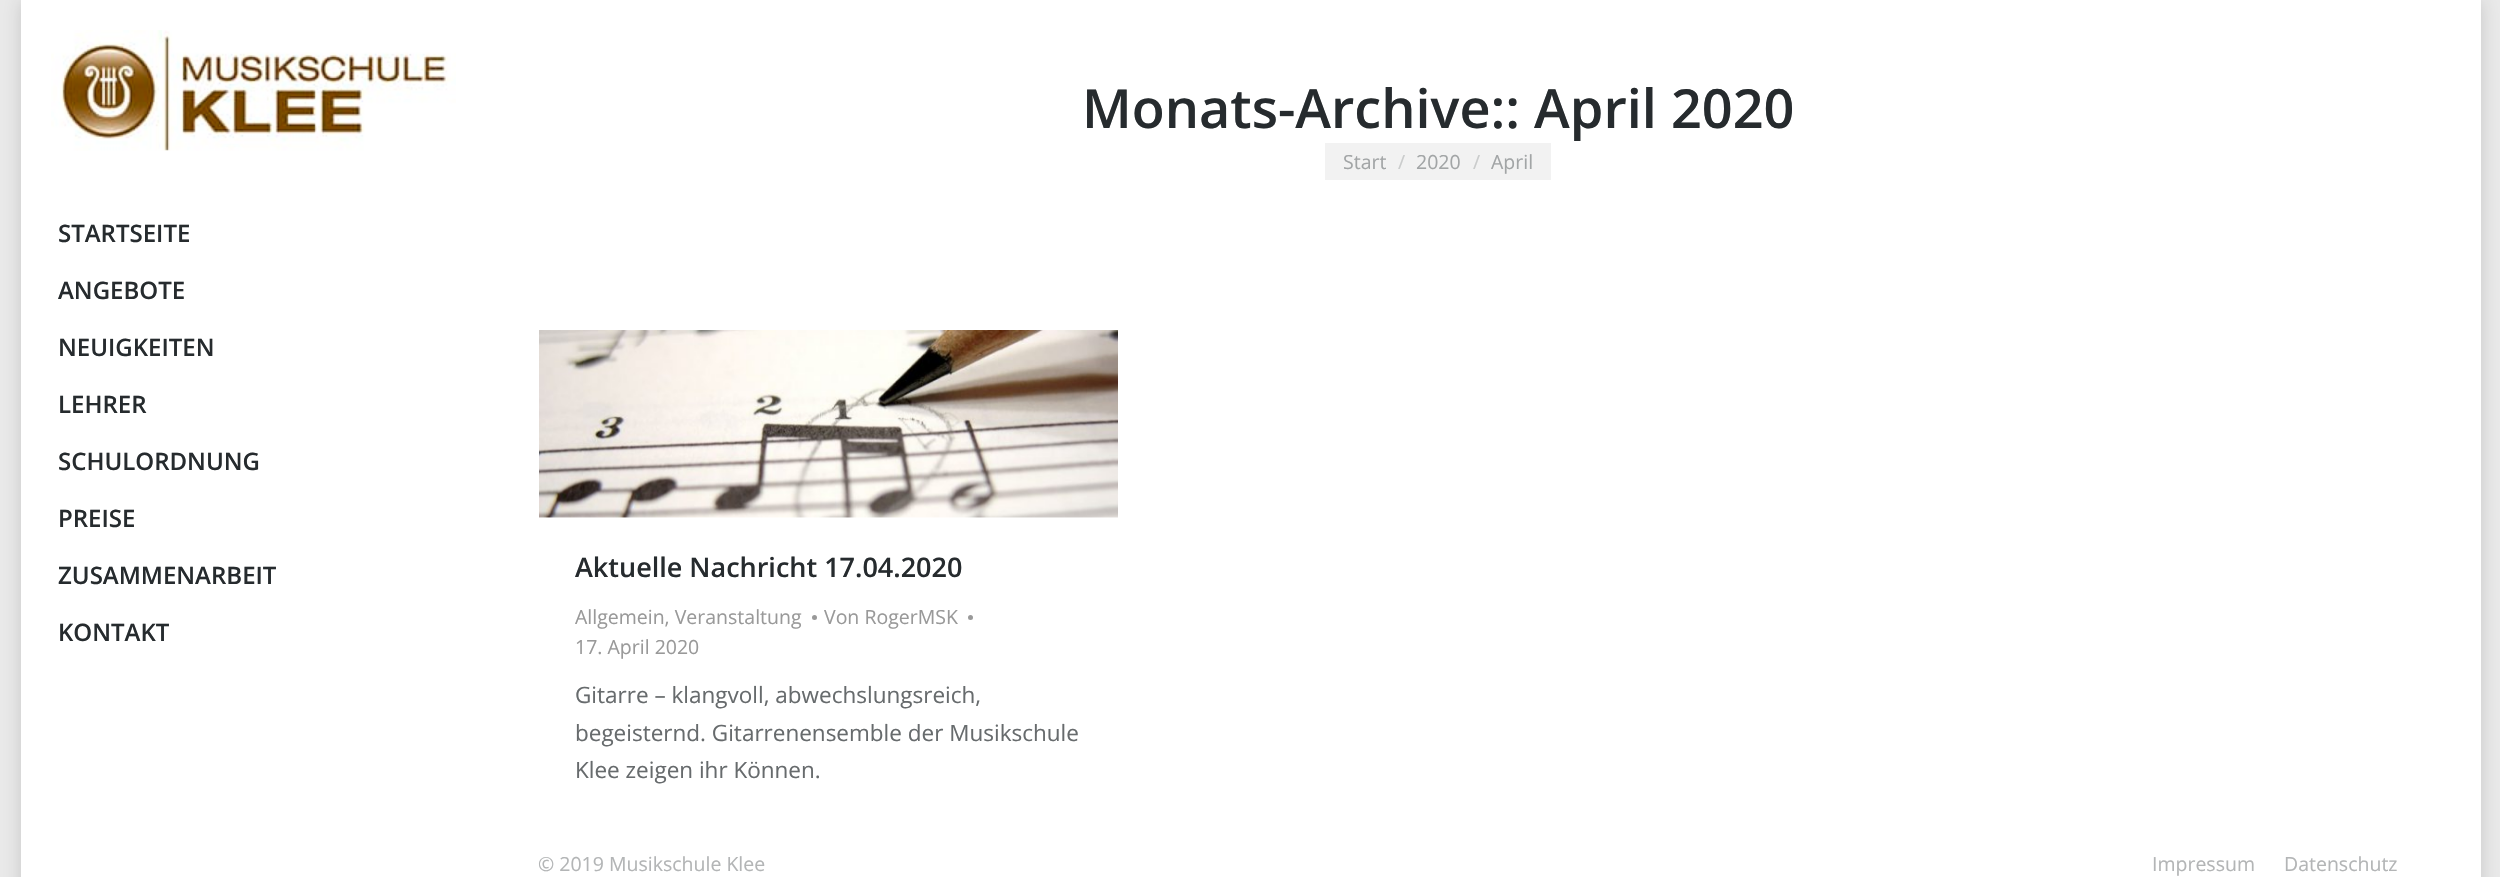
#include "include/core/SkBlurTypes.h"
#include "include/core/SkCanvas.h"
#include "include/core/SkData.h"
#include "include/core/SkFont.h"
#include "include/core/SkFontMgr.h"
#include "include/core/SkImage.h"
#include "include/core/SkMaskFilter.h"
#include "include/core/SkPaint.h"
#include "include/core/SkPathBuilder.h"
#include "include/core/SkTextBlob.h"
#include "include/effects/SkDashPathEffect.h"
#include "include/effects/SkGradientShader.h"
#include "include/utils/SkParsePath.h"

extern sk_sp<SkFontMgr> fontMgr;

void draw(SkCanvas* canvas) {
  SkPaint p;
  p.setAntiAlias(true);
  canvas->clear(SkColorSetRGB(234, 234, 234));
  p.setColor(SkColorSetARGB(38, 0, 0, 0));
  p.setMaskFilter(SkMaskFilter::MakeBlur(kNormal_SkBlurStyle, 9));
  canvas->drawRect(SkRect::MakeLTRB(21, 0, 2481, 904), p);
  p.setMaskFilter(nullptr);
  p.setColor(SK_ColorWHITE);
  canvas->drawRect(SkRect::MakeLTRB(21, 0, 2481, 877), p);
  p.setColor(SkColorSetRGB(242, 242, 242));
  canvas->drawRect(SkRect::MakeLTRB(1325, 143, 1551, 180), p);
  canvas->drawImageRect(SkImages::DeferredFromEncodedData(SkData::MakeFromFileName("images/1.png")), SkRect::MakeLTRB(51, 30, 456, 151), SkSamplingOptions());
  canvas->drawImageRect(SkImages::DeferredFromEncodedData(SkData::MakeFromFileName("images/2.png")), SkRect::MakeLTRB(539, 330, 1118, 518), SkSamplingOptions());
  p.setColor(SkColorSetRGB(153, 153, 153));
  canvas->drawCircle(814.5f, 617.5f, 2.5f, p);
  canvas->drawCircle(970.5f, 617.5f, 2.5f, p);
  SkFont font1(fontMgr->matchFamilyStyle("Open Sans", SkFontStyle(600, SkFontStyle::kNormal_Width, SkFontStyle::kUpright_Slant)), 54);
  font1.setSubpixel(true);
  p.setColor(SkColorSetRGB(38, 43, 46));
  canvas->drawString("Monats-Archive:: April 2020", 1082, 128, font1, p);
  SkFont font2(fontMgr->matchFamilyStyle("Open Sans", SkFontStyle::Normal()), 19.5f);
  font2.setSubpixel(true);
  p.setColor(SkColorSetRGB(162, 165, 166));
  canvas->drawString("Start", 1343, 169, font2, p);
  p.setColor(SkColorSetRGB(202, 204, 204));
  canvas->drawString("/", 1398, 169, font2, p);
  p.setColor(SkColorSetRGB(162, 165, 166));
  canvas->drawString("2020", 1416, 169, font2, p);
  p.setColor(SkColorSetRGB(202, 204, 204));
  canvas->drawString("/", 1473, 169, font2, p);
  p.setColor(SkColorSetRGB(162, 165, 166));
  canvas->drawString("April", 1491, 169, font2, p);
  SkFont font3(fontMgr->matchFamilyStyle("Open Sans", SkFontStyle(600, SkFontStyle::kNormal_Width, SkFontStyle::kUpright_Slant)), 24);
  font3.setSubpixel(true);
  p.setColor(SkColorSetRGB(38, 43, 46));
  canvas->drawString("STARTSEITE", 58, 242, font3, p);
  canvas->drawString("ANGEBOTE", 58, 299, font3, p);
  canvas->drawString("NEUIGKEITEN", 58, 356, font3, p);
  canvas->drawString("LEHRER", 58, 413, font3, p);
  canvas->drawString("SCHULORDNUNG", 58, 470, font3, p);
  canvas->drawString("PREISE", 58, 527, font3, p);
  canvas->drawString("ZUSAMMENARBEIT", 58, 584, font3, p);
  canvas->drawString("KONTAKT", 58, 641, font3, p);
  SkFont font4(fontMgr->matchFamilyStyle("Open Sans", SkFontStyle(600, SkFontStyle::kNormal_Width, SkFontStyle::kUpright_Slant)), 27);
  font4.setSubpixel(true);
  canvas->drawString("Aktuelle Nachricht 17.04.2020", 575, 577, font4, p);
  p.setColor(SkColorSetRGB(153, 153, 153));
  canvas->drawString("Allgemein, Veranstaltung", 575, 624, font2, p);
  canvas->drawString("Von RogerMSK", 824, 624, font2, p);
  canvas->drawString("17. April 2020", 575, 654, font2, p);
  SkFont font5(fontMgr->matchFamilyStyle("Open Sans", SkFontStyle::Normal()), 22.5f);
  font5.setSubpixel(true);
  p.setColor(SkColorSetRGB(103, 107, 109));
  canvas->drawString("Gitarre – klangvoll, abwechslungsreich,", 575, 703, font5, p);
  canvas->drawString("begeisternd. Gitarrenensemble der Musikschule", 575, 741, font5, p);
  canvas->drawString("Klee zeigen ihr Können.", 575, 778, font5, p);
  p.setColor(SkColorSetRGB(179, 181, 182));
  canvas->drawString("© 2019 Musikschule Klee", 538, 871, font2, p);
  canvas->drawString("Impressum", 2152, 871, font2, p);
  canvas->drawString("Datenschutz", 2284, 871, font2, p);
}
